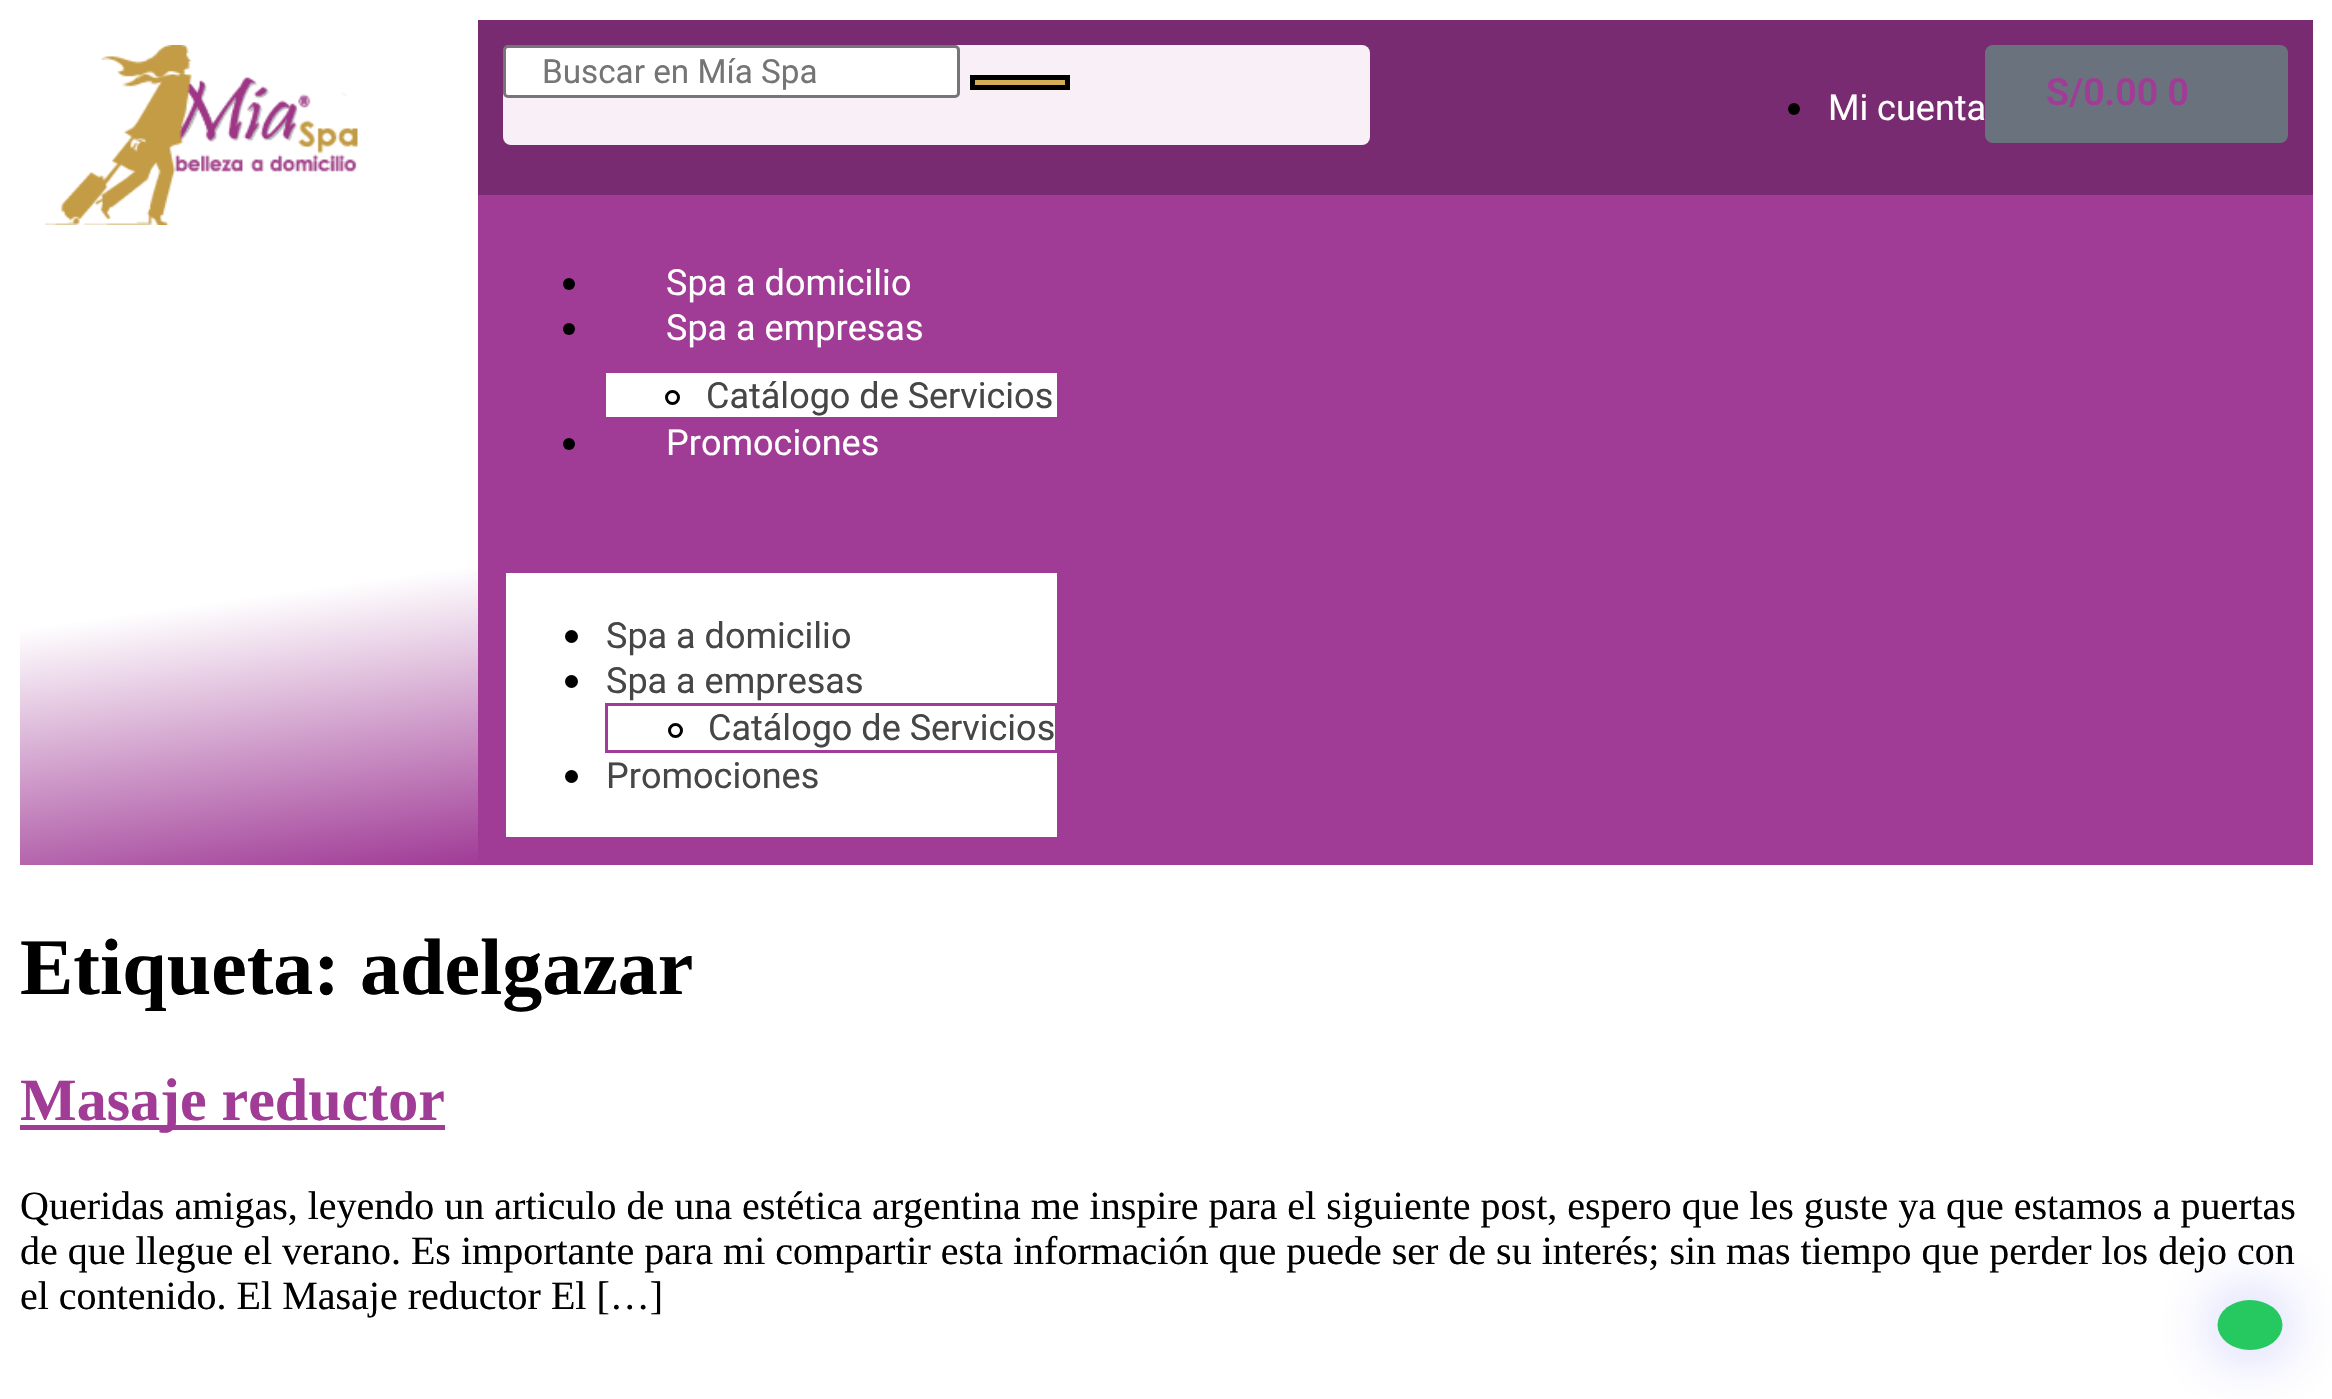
#include "include/core/SkBlurTypes.h"
#include "include/core/SkCanvas.h"
#include "include/core/SkData.h"
#include "include/core/SkFont.h"
#include "include/core/SkFontMgr.h"
#include "include/core/SkImage.h"
#include "include/core/SkMaskFilter.h"
#include "include/core/SkPaint.h"
#include "include/core/SkPathBuilder.h"
#include "include/core/SkTextBlob.h"
#include "include/effects/SkDashPathEffect.h"
#include "include/effects/SkGradientShader.h"
#include "include/utils/SkParsePath.h"

extern sk_sp<SkFontMgr> fontMgr;

void draw(SkCanvas* canvas) {
  SkPaint p;
  p.setAntiAlias(true);
  canvas->clear(SK_ColorWHITE);
  {
    const SkColor colors[] = {SkColorSetRGB(160, 59, 150), SK_ColorWHITE};
    const float stops[] = {0, 0.33f};
    const SkPoint ends[] = {{311, 888}, {186, -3.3f}};
    p.setShader(SkGradientShader::MakeLinear(ends, colors, stops, 2, SkTileMode::kClamp));
    p.setAlpha(255);
  }
  canvas->drawRect(SkRect::MakeLTRB(20, 569, 478, 865), p);
  canvas->drawImageRect(SkImages::DeferredFromEncodedData(SkData::MakeFromFileName("images/1.png")), SkRect::MakeLTRB(45, 45, 358, 225), SkSamplingOptions());
  p.setShader(nullptr);
  p.setColor(SkColorSetRGB(121, 43, 113));
  canvas->drawRect(SkRect::MakeLTRB(478, 20, 2313, 195), p);
  p.setColor(SkColorSetRGB(248, 239, 247));
  canvas->drawRoundRect(SkRect::MakeLTRB(503, 45, 1370, 145), 8, 8, p);
  p.setColor(SK_ColorWHITE);
  canvas->drawRoundRect(SkRect::MakeLTRB(504.5f, 46.5f, 958.5f, 96.5f), 3.5f, 3.5f, p);
  p.setStyle(SkPaint::kStroke_Style);
  p.setStrokeWidth(3);
  p.setColor(SkColorSetRGB(118, 118, 118));
  canvas->drawRoundRect(SkRect::MakeLTRB(504.5f, 46.5f, 958.5f, 96.5f), 3.5f, 3.5f, p);
  p.setStyle(SkPaint::kFill_Style);
  p.setColor(SkColorSetRGB(212, 174, 84));
  canvas->drawRect(SkRect::MakeLTRB(972.5f, 77.5f, 1067.5f, 87.5f), p);
  p.setStyle(SkPaint::kStroke_Style);
  p.setStrokeWidth(5);
  p.setColor(SK_ColorBLACK);
  canvas->drawRect(SkRect::MakeLTRB(972.5f, 77.5f, 1067.5f, 87.5f), p);
  p.setStyle(SkPaint::kFill_Style);
  canvas->drawCircle(1794, 109, 6, p);
  p.setColor(SkColorSetRGB(105, 114, 125));
  canvas->drawRoundRect(SkRect::MakeLTRB(1985, 45, 2288, 143), 8, 8, p);
  p.setColor(SkColorSetRGB(160, 59, 150));
  canvas->drawRect(SkRect::MakeLTRB(478, 195, 2313, 865), p);
  p.setColor(SK_ColorBLACK);
  canvas->drawCircle(569, 284, 6, p);
  canvas->drawCircle(569, 329, 6, p);
  p.setColor(SK_ColorWHITE);
  canvas->drawRect(SkRect::MakeLTRB(606, 373, 1057, 417), p);
  p.setStyle(SkPaint::kStroke_Style);
  p.setStrokeWidth(3);
  p.setColor(SK_ColorBLACK);
  canvas->drawCircle(672.5f, 397.5f, 6, p);
  p.setStyle(SkPaint::kFill_Style);
  canvas->drawCircle(569, 444, 6, p);
  p.setColor(SK_ColorWHITE);
  canvas->drawRect(SkRect::MakeLTRB(506, 573, 1057, 837), p);
  p.setColor(SK_ColorBLACK);
  canvas->drawCircle(571.5f, 636.5f, 6.5f, p);
  canvas->drawCircle(571.5f, 681.5f, 6.5f, p);
  p.setStyle(SkPaint::kStroke_Style);
  p.setColor(SkColorSetRGB(160, 59, 150));
  canvas->drawRect(SkRect::MakeLTRB(606.5f, 704.5f, 1056.5f, 751.5f), p);
  p.setColor(SK_ColorBLACK);
  canvas->drawCircle(675.5f, 730.5f, 6, p);
  p.setStyle(SkPaint::kFill_Style);
  canvas->drawCircle(571.5f, 776.5f, 6.5f, p);
  p.setColor(SkColorSetARGB(89, 53, 56, 240));
  p.setMaskFilter(SkMaskFilter::MakeBlur(kNormal_SkBlurStyle, 31));
  canvas->drawRoundRect(SkRect::MakeLTRB(2218, 1300, 2283, 1350), 25, 25, p);
  p.setMaskFilter(nullptr);
  p.setColor(SkColorSetRGB(38, 201, 95));
  canvas->drawOval(SkRect::MakeLTRB(2217.5f, 1300, 2282.5f, 1350), p);
  p.setColor(SkColorSetRGB(160, 59, 150));
  canvas->drawRect(SkRect::MakeLTRB(20, 1125, 445, 1130), p);
  SkFont font1(fontMgr->matchFamilyStyle("Roboto", SkFontStyle::Normal()), 33.25f);
  font1.setSubpixel(true);
  p.setColor(SkColorSetRGB(117, 117, 117));
  canvas->drawString("Buscar en Mía Spa", 542, 83, font1, p);
  SkFont font2(fontMgr->matchFamilyStyle("Roboto", SkFontStyle::Normal()), 36);
  font2.setSubpixel(true);
  p.setColor(SK_ColorWHITE);
  canvas->drawString("Mi cuenta", 1828, 120, font2, p);
  SkFont font3(fontMgr->matchFamilyStyle("Roboto", SkFontStyle(600, SkFontStyle::kNormal_Width, SkFontStyle::kUpright_Slant)), 37.5f);
  font3.setSubpixel(true);
  p.setColor(SkColorSetRGB(160, 59, 150));
  canvas->drawString("S/0.00 0", 2046, 105, font3, p);
  p.setColor(SK_ColorWHITE);
  canvas->drawString("Spa a domicilio", 666, 295, font2, p);
  canvas->drawString("Spa a empresas", 666, 340, font2, p);
  p.setColor(SkColorSetRGB(71, 70, 70));
  canvas->drawString("Catálogo de Servicios", 706, 408, font2, p);
  p.setColor(SK_ColorWHITE);
  canvas->drawString("Promociones", 666, 455, font2, p);
  p.setColor(SkColorSetRGB(71, 70, 70));
  canvas->drawString("Spa a domicilio", 606, 648, font2, p);
  canvas->drawString("Spa a empresas", 606, 693, font2, p);
  canvas->drawString("Catálogo de Servicios", 708, 740, font2, p);
  canvas->drawString("Promociones", 606, 788, font2, p);
  SkFont font4(fontMgr->matchFamilyStyle("Liberation Serif", SkFontStyle::Bold()), 80);
  font4.setSubpixel(true);
  p.setColor(SK_ColorBLACK);
  canvas->drawString("Etiqueta: adelgazar", 20, 994, font4, p);
  SkFont font5(fontMgr->matchFamilyStyle("Liberation Serif", SkFontStyle::Bold()), 60);
  font5.setSubpixel(true);
  p.setColor(SkColorSetRGB(160, 59, 150));
  canvas->drawString("Masaje reductor", 20, 1120, font5, p);
  SkFont font6(fontMgr->matchFamilyStyle("Liberation Serif", SkFontStyle::Normal()), 40);
  font6.setSubpixel(true);
  p.setColor(SK_ColorBLACK);
  canvas->drawString("Queridas amigas, leyendo un articulo de una estética argentina me inspire para el siguiente post, espero que les guste ya que estamos a puertas", 20, 1219, font6, p);
  canvas->drawString("de que llegue el verano. Es importante para mi compartir esta información que puede ser de su interés; sin mas tiempo que perder los dejo con", 20, 1264, font6, p);
  canvas->drawString("el contenido. El Masaje reductor El […]", 20, 1309, font6, p);
}
